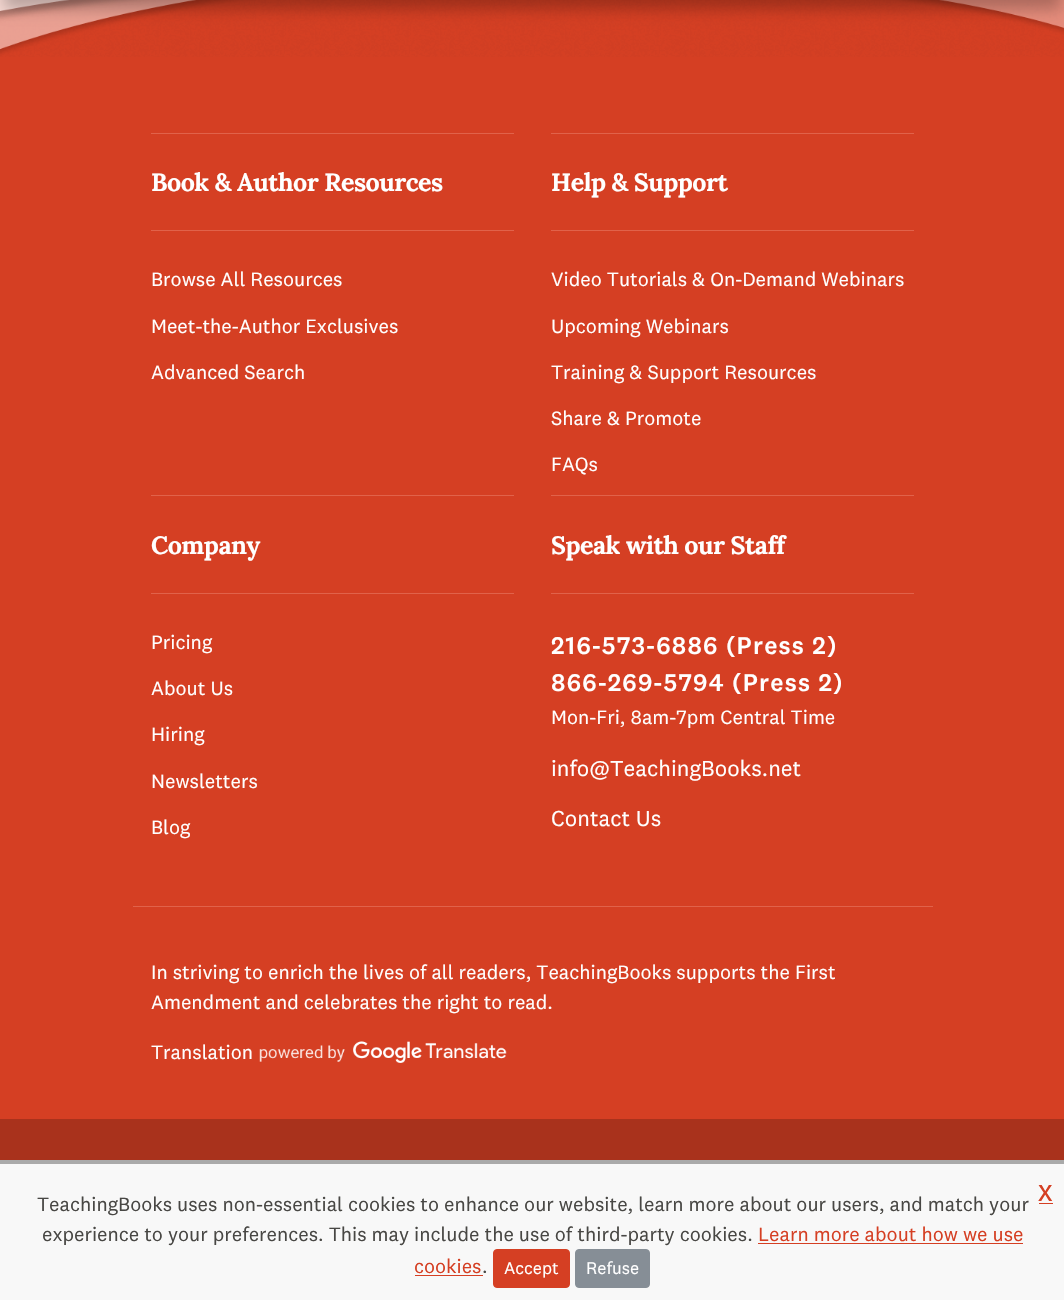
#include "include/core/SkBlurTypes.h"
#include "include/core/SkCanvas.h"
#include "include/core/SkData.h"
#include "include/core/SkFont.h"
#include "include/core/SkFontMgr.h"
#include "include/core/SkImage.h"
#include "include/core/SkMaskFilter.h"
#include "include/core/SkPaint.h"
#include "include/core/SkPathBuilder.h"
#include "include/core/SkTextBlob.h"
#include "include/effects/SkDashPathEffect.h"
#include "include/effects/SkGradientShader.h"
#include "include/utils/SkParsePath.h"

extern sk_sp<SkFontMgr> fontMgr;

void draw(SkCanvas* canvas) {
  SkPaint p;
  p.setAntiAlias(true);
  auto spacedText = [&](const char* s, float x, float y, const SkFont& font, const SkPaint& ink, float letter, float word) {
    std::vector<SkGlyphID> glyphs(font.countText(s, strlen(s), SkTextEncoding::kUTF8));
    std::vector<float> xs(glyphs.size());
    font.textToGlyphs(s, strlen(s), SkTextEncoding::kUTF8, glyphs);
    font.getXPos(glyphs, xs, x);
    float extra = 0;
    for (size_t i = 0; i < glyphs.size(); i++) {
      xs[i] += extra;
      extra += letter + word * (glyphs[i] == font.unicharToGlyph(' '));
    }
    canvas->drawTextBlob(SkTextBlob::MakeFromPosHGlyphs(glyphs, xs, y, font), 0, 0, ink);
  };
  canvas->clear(SkColorSetRGB(169, 50, 28));
  p.setColor(SkColorSetRGB(213, 63, 35));
  canvas->drawRect(SkRect::MakeLTRB(0, 0, 1064, 1119), p);
  canvas->drawImageRect(SkImages::DeferredFromEncodedData(SkData::MakeFromFileName("images/1.png")), SkRect::MakeLTRB(0, 0, 1064, 57), SkSamplingOptions());
  p.setColor(SkColorSetARGB(64, 0, 0, 0));
  p.setMaskFilter(SkMaskFilter::MakeBlur(kNormal_SkBlurStyle, 7.5f));
  canvas->drawRect(SkRect::MakeLTRB(4, -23, 1061, 9), p);
  p.setMaskFilter(nullptr);
  p.setColor(SkColorSetRGB(225, 98, 74));
  canvas->drawRect(SkRect::MakeLTRB(151, 133, 514, 134), p);
  canvas->drawRect(SkRect::MakeLTRB(151, 230, 514, 231), p);
  canvas->drawRect(SkRect::MakeLTRB(551, 133, 914, 134), p);
  canvas->drawRect(SkRect::MakeLTRB(551, 230, 914, 231), p);
  canvas->drawRect(SkRect::MakeLTRB(151, 495, 514, 496), p);
  canvas->drawRect(SkRect::MakeLTRB(151, 593, 514, 594), p);
  canvas->drawRect(SkRect::MakeLTRB(551, 495, 914, 496), p);
  canvas->drawRect(SkRect::MakeLTRB(551, 593, 914, 594), p);
  canvas->drawRect(SkRect::MakeLTRB(133, 906, 933, 907), p);
  canvas->drawImageRect(SkImages::DeferredFromEncodedData(SkData::MakeFromFileName("images/2.png")), SkRect::MakeLTRB(259, 1041, 507, 1063), SkSamplingOptions());
  p.setColor(SkColorSetRGB(248, 248, 248));
  canvas->drawRect(SkRect::MakeLTRB(0, 1164, 1064, 1300), p);
  p.setColor(SkColorSetRGB(170, 170, 170));
  canvas->drawRect(SkRect::MakeLTRB(0, 1160, 1064, 1164), p);
  p.setColor(SkColorSetRGB(213, 63, 35));
  canvas->drawRect(SkRect::MakeLTRB(1039, 1203, 1053, 1204), p);
  canvas->drawRect(SkRect::MakeLTRB(758, 1243, 1023, 1244), p);
  canvas->drawRect(SkRect::MakeLTRB(415, 1275, 483, 1276), p);
  canvas->drawRoundRect(SkRect::MakeLTRB(493.5f, 1249.5f, 569.5f, 1287.5f), 3.5f, 3.5f, p);
  p.setStyle(SkPaint::kStroke_Style);
  p.setStrokeWidth(1);
  canvas->drawRoundRect(SkRect::MakeLTRB(493.5f, 1249.5f, 569.5f, 1287.5f), 3.5f, 3.5f, p);
  p.setStyle(SkPaint::kFill_Style);
  p.setColor(SkColorSetRGB(134, 142, 150));
  canvas->drawRoundRect(SkRect::MakeLTRB(575.5f, 1249.5f, 649.5f, 1287.5f), 3.5f, 3.5f, p);
  p.setStyle(SkPaint::kStroke_Style);
  canvas->drawRoundRect(SkRect::MakeLTRB(575.5f, 1249.5f, 649.5f, 1287.5f), 3.5f, 3.5f, p);
  SkFont font1(fontMgr->matchFamilyStyle("Lora", SkFontStyle::Bold()), 25);
  font1.setSubpixel(true);
  p.setStyle(SkPaint::kFill_Style);
  p.setColor(SK_ColorWHITE);
  spacedText("Book & Author Resources", 151, 191, font1, p, -0.5f, 0);
  SkFont font2(fontMgr->matchFamilyStyle("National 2", SkFontStyle::Normal()), 20);
  font2.setSubpixel(true);
  canvas->drawString("Browse All Resources", 151, 286, font2, p);
  canvas->drawString("Meet-the-Author Exclusives", 151, 333, font2, p);
  canvas->drawString("Advanced Search", 151, 379, font2, p);
  spacedText("Help & Support", 551, 191, font1, p, -0.5f, 0);
  canvas->drawString("Video Tutorials & On-Demand Webinars", 551, 286, font2, p);
  canvas->drawString("Upcoming Webinars", 551, 333, font2, p);
  canvas->drawString("Training & Support Resources", 551, 379, font2, p);
  canvas->drawString("Share & Promote", 551, 425, font2, p);
  canvas->drawString("FAQs", 551, 471, font2, p);
  spacedText("Company", 151, 554, font1, p, -0.5f, 0);
  canvas->drawString("Pricing", 151, 649, font2, p);
  canvas->drawString("About Us", 151, 695, font2, p);
  canvas->drawString("Hiring", 151, 741, font2, p);
  canvas->drawString("Newsletters", 151, 788, font2, p);
  canvas->drawString("Blog", 151, 834, font2, p);
  spacedText("Speak with our Staff", 551, 554, font1, p, -0.5f, 0);
  SkFont font3(fontMgr->matchFamilyStyle("National 2", SkFontStyle(500, SkFontStyle::kNormal_Width, SkFontStyle::kUpright_Slant)), 25);
  font3.setSubpixel(true);
  spacedText("216-573-6886 (Press 2)", 551, 654, font3, p, 1.25f, 0);
  spacedText("866-269-5794 (Press 2)", 551, 691, font3, p, 1.25f, 0);
  canvas->drawString("Mon-Fri, 8am-7pm Central Time", 551, 724, font2, p);
  SkFont font4(fontMgr->matchFamilyStyle("National 2", SkFontStyle::Normal()), 22.5f);
  font4.setSubpixel(true);
  canvas->drawString("info@TeachingBooks.net", 551, 776, font4, p);
  canvas->drawString("Contact Us", 551, 826, font4, p);
  canvas->drawString("In striving to enrich the lives of all readers, TeachingBooks supports the First", 151, 979, font2, p);
  canvas->drawString("Amendment and celebrates the right to read.", 151, 1009, font2, p);
  canvas->drawString("Translation", 151, 1059, font2, p);
  SkFont font5(fontMgr->matchFamilyStyle("National 2", SkFontStyle::Bold()), 23);
  font5.setSubpixel(true);
  p.setColor(SkColorSetRGB(213, 63, 35));
  canvas->drawString("X", 1038, 1201, font5, p);
  p.setColor(SkColorSetRGB(72, 71, 68));
  canvas->drawString("TeachingBooks uses non-essential cookies to enhance our website, learn more about our users, and match your", 37, 1211, font2, p);
  canvas->drawString("experience to your preferences. This may include the use of third-party cookies.", 42, 1241, font2, p);
  p.setColor(SkColorSetRGB(213, 63, 35));
  canvas->drawString("Learn more about how we use", 758, 1241, font2, p);
  canvas->drawString("cookies", 414, 1273, font2, p);
  p.setColor(SkColorSetRGB(72, 71, 68));
  canvas->drawString(".", 482, 1273, font2, p);
  SkFont font6(fontMgr->matchFamilyStyle("National 2", SkFontStyle::Normal()), 17.5f);
  font6.setSubpixel(true);
  p.setColor(SK_ColorWHITE);
  canvas->drawString("Accept", 504, 1274, font6, p);
  canvas->drawString("Refuse", 586, 1274, font6, p);
}
